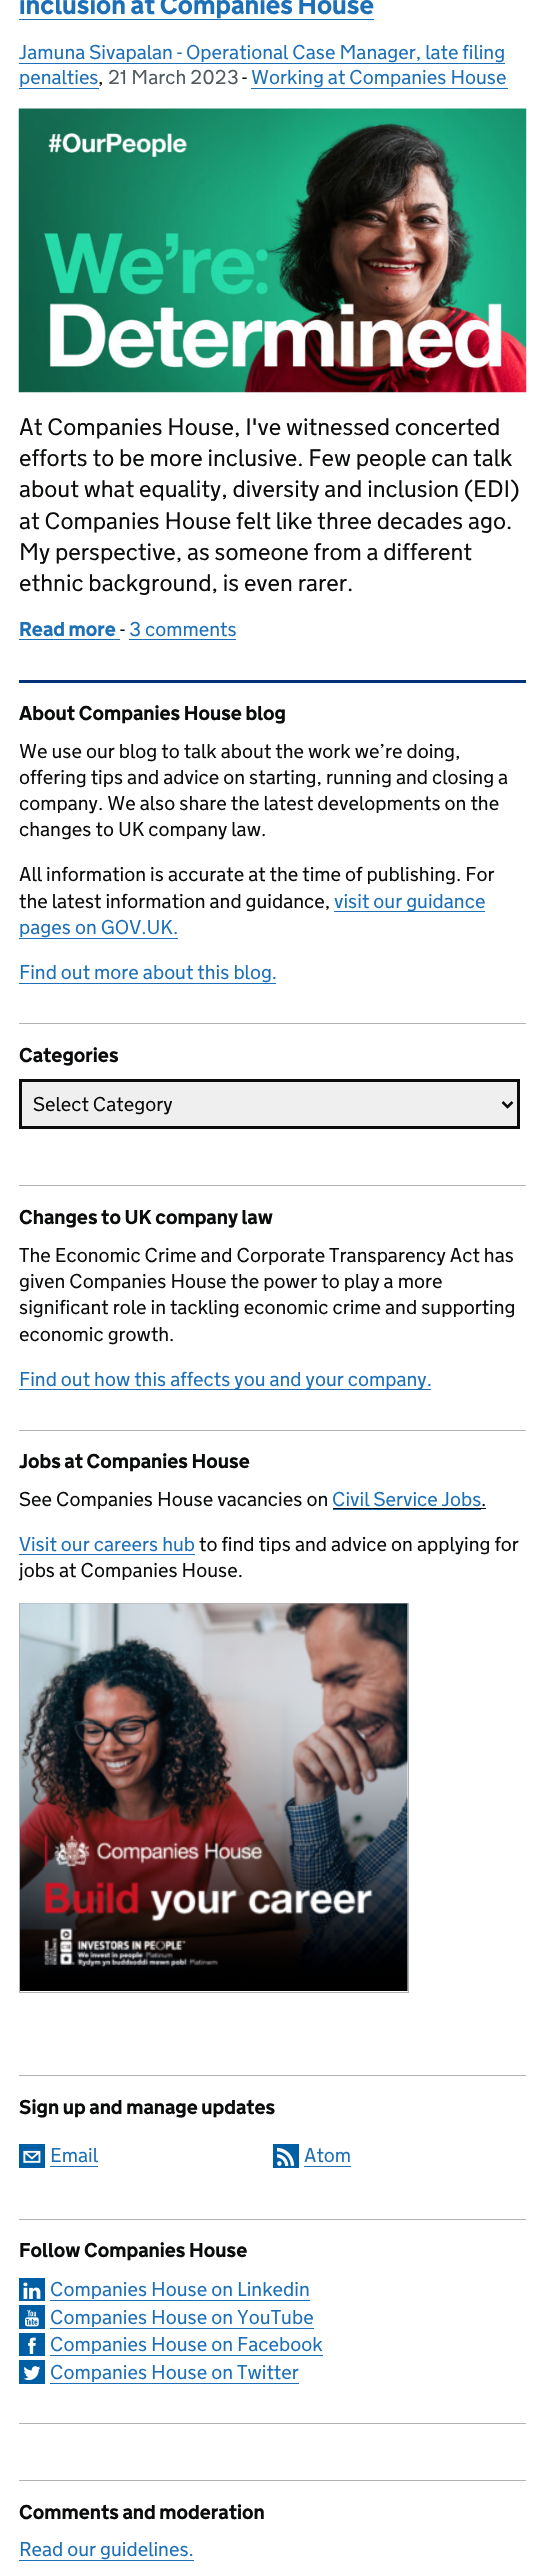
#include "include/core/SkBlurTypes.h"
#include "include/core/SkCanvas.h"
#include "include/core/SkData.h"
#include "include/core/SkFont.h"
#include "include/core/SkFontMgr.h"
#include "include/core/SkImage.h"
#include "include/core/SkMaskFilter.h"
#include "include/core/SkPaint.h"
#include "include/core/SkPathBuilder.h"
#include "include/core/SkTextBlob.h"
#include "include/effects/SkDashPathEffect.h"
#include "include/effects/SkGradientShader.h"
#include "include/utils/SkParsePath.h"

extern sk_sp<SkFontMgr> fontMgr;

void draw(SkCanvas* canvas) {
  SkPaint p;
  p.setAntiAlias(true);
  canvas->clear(SK_ColorWHITE);
  p.setColor(SkColorSetRGB(29, 112, 184));
  canvas->drawRect(SkRect::MakeLTRB(19, 19, 374, 20), p);
  canvas->drawRect(SkRect::MakeLTRB(19, 63, 505, 64), p);
  canvas->drawRect(SkRect::MakeLTRB(19, 88, 99, 89), p);
  canvas->drawRect(SkRect::MakeLTRB(251, 88, 508, 89), p);
  canvas->drawImageRect(SkImages::DeferredFromEncodedData(SkData::MakeFromFileName("images/1.png")), SkRect::MakeLTRB(18, 108, 527, 393), SkSamplingOptions());
  canvas->drawRect(SkRect::MakeLTRB(19, 639, 120, 640), p);
  canvas->drawRect(SkRect::MakeLTRB(129, 639, 236, 640), p);
  p.setColor(SkColorSetRGB(0, 48, 120));
  canvas->drawRect(SkRect::MakeLTRB(19, 680, 526, 683), p);
  p.setColor(SkColorSetRGB(29, 112, 184));
  canvas->drawRect(SkRect::MakeLTRB(334, 911, 485, 912), p);
  canvas->drawRect(SkRect::MakeLTRB(19, 938, 178, 939), p);
  canvas->drawRect(SkRect::MakeLTRB(19, 983, 276, 984), p);
  p.setColor(SkColorSetRGB(177, 180, 182));
  canvas->drawRect(SkRect::MakeLTRB(19, 1023, 526, 1024), p);
  p.setColor(SkColorSetRGB(239, 239, 239));
  canvas->drawRect(SkRect::MakeLTRB(20.5f, 1080.5f, 518.5f, 1127.5f), p);
  p.setStyle(SkPaint::kStroke_Style);
  p.setStrokeWidth(3);
  p.setColor(SkColorSetRGB(11, 12, 12));
  canvas->drawRect(SkRect::MakeLTRB(20.5f, 1080.5f, 518.5f, 1127.5f), p);
  p.setStrokeWidth(2.5f);
  canvas->drawPath(SkPathBuilder().moveTo(502.5f, 1102).lineTo(507.5f, 1107).lineTo(512.5f, 1102).detach(), p);
  p.setStyle(SkPaint::kFill_Style);
  p.setColor(SkColorSetRGB(177, 180, 182));
  canvas->drawRect(SkRect::MakeLTRB(19, 1185, 526, 1186), p);
  p.setColor(SkColorSetRGB(29, 112, 184));
  canvas->drawRect(SkRect::MakeLTRB(19, 1389, 431, 1390), p);
  p.setColor(SkColorSetRGB(177, 180, 182));
  canvas->drawRect(SkRect::MakeLTRB(19, 1430, 526, 1431), p);
  p.setColor(SkColorSetRGB(29, 112, 184));
  canvas->drawRect(SkRect::MakeLTRB(333, 1509, 481, 1510), p);
  p.setColor(SkColorSetRGB(11, 12, 12));
  canvas->drawRect(SkRect::MakeLTRB(333, 1508, 486, 1509), p);
  p.setColor(SkColorSetRGB(29, 112, 184));
  canvas->drawRect(SkRect::MakeLTRB(19, 1554, 195, 1555), p);
  p.setStyle(SkPaint::kStroke_Style);
  p.setStrokeWidth(1);
  p.setColor(SkColorSetRGB(177, 180, 182));
  canvas->drawRect(SkRect::MakeLTRB(19.5f, 1603.5f, 408.5f, 1992.5f), p);
  canvas->drawImageRect(SkImages::DeferredFromEncodedData(SkData::MakeFromFileName("images/2.png")), SkRect::MakeLTRB(20, 1603, 408, 1991), SkSamplingOptions());
  p.setStyle(SkPaint::kFill_Style);
  canvas->drawRect(SkRect::MakeLTRB(19, 2075, 526, 2076), p);
  canvas->drawImageRect(SkImages::DeferredFromEncodedData(SkData::MakeFromFileName("images/3.png")), SkRect::MakeLTRB(19, 2144, 45, 2168), SkSamplingOptions());
  p.setColor(SkColorSetRGB(29, 112, 184));
  canvas->drawRect(SkRect::MakeLTRB(50, 2166, 98, 2167), p);
  canvas->drawImageRect(SkImages::DeferredFromEncodedData(SkData::MakeFromFileName("images/4.png")), SkRect::MakeLTRB(273, 2144, 299, 2168), SkSamplingOptions());
  canvas->drawRect(SkRect::MakeLTRB(304, 2166, 351, 2167), p);
  p.setColor(SkColorSetRGB(177, 180, 182));
  canvas->drawRect(SkRect::MakeLTRB(19, 2219, 526, 2220), p);
  canvas->drawImageRect(SkImages::DeferredFromEncodedData(SkData::MakeFromFileName("images/5.png")), SkRect::MakeLTRB(19, 2278, 45, 2301), SkSamplingOptions());
  p.setColor(SkColorSetRGB(29, 112, 184));
  canvas->drawRect(SkRect::MakeLTRB(50, 2300, 310, 2301), p);
  canvas->drawImageRect(SkImages::DeferredFromEncodedData(SkData::MakeFromFileName("images/6.png")), SkRect::MakeLTRB(19, 2305, 45, 2329), SkSamplingOptions());
  canvas->drawRect(SkRect::MakeLTRB(50, 2328, 314, 2329), p);
  canvas->drawImageRect(SkImages::DeferredFromEncodedData(SkData::MakeFromFileName("images/7.png")), SkRect::MakeLTRB(19, 2333, 45, 2356), SkSamplingOptions());
  canvas->drawRect(SkRect::MakeLTRB(50, 2355, 323, 2356), p);
  canvas->drawImageRect(SkImages::DeferredFromEncodedData(SkData::MakeFromFileName("images/8.png")), SkRect::MakeLTRB(19, 2360, 45, 2384), SkSamplingOptions());
  canvas->drawRect(SkRect::MakeLTRB(50, 2383, 299, 2384), p);
  p.setColor(SkColorSetRGB(177, 180, 182));
  canvas->drawRect(SkRect::MakeLTRB(19, 2423, 526, 2424), p);
  canvas->drawRect(SkRect::MakeLTRB(19, 2480, 526, 2481), p);
  p.setColor(SkColorSetRGB(29, 112, 184));
  canvas->drawRect(SkRect::MakeLTRB(19, 2560, 194, 2561), p);
  SkFont font1(fontMgr->matchFamilyStyle("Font", SkFontStyle::Bold()), 26.25f);
  font1.setSubpixel(true);
  canvas->drawString("inclusion at Companies House", 19, 14, font1, p);
  SkFont font2(fontMgr->matchFamilyStyle("Font", SkFontStyle(300, SkFontStyle::kNormal_Width, SkFontStyle::kUpright_Slant)), 20);
  font2.setSubpixel(true);
  canvas->drawString("Jamuna Sivapalan - Operational Case Manager, late filing", 19, 59, font2, p);
  canvas->drawString("penalties", 19, 84, font2, p);
  p.setColor(SkColorSetRGB(80, 90, 95));
  canvas->drawString("21 March 2023", 108, 84, font2, p);
  p.setColor(SkColorSetRGB(11, 12, 12));
  canvas->drawString("-", 242, 84, font2, p);
  p.setColor(SkColorSetRGB(29, 112, 184));
  canvas->drawString("Working at Companies House", 251, 84, font2, p);
  p.setColor(SkColorSetRGB(11, 12, 12));
  canvas->drawString(",", 98, 84, font2, p);
  SkFont font3(fontMgr->matchFamilyStyle("Font", SkFontStyle(300, SkFontStyle::kNormal_Width, SkFontStyle::kUpright_Slant)), 23.75f);
  font3.setSubpixel(true);
  canvas->drawString("At Companies House, I've witnessed concerted", 19, 435, font3, p);
  canvas->drawString("efforts to be more inclusive. Few people can talk", 19, 466, font3, p);
  canvas->drawString("about what equality, diversity and inclusion (EDI)", 19, 497, font3, p);
  canvas->drawString("at Companies House felt like three decades ago.", 19, 529, font3, p);
  canvas->drawString("My perspective, as someone from a different", 19, 560, font3, p);
  canvas->drawString("ethnic background, is even rarer.", 19, 591, font3, p);
  SkFont font4(fontMgr->matchFamilyStyle("Font", SkFontStyle::Bold()), 20);
  font4.setSubpixel(true);
  p.setColor(SkColorSetRGB(29, 112, 184));
  canvas->drawString("Read more", 19, 636, font4, p);
  p.setColor(SkColorSetRGB(11, 12, 12));
  canvas->drawString("-", 120, 636, font2, p);
  p.setColor(SkColorSetRGB(29, 112, 184));
  canvas->drawString("3 comments", 129, 636, font2, p);
  p.setColor(SkColorSetRGB(11, 12, 12));
  canvas->drawString("About Companies House blog", 19, 720, font4, p);
  canvas->drawString("We use our blog to talk about the work we’re doing,", 19, 758, font2, p);
  canvas->drawString("offering tips and advice on starting, running and closing a", 19, 784, font2, p);
  canvas->drawString("company. We also share the latest developments on the", 19, 810, font2, p);
  canvas->drawString("changes to UK company law.", 19, 836, font2, p);
  canvas->drawString("All information is accurate at the time of publishing. For", 19, 881, font2, p);
  canvas->drawString("the latest information and guidance,", 19, 908, font2, p);
  p.setColor(SkColorSetRGB(29, 112, 184));
  canvas->drawString("visit our guidance", 334, 908, font2, p);
  canvas->drawString("pages on GOV.UK.", 19, 934, font2, p);
  canvas->drawString("Find out more about this blog.", 19, 979, font2, p);
  p.setColor(SkColorSetRGB(11, 12, 12));
  canvas->drawString("Categories", 19, 1062, font4, p);
  canvas->drawString("Select Category", 33, 1111, font2, p);
  canvas->drawString("Changes to UK company law", 19, 1224, font4, p);
  canvas->drawString("The Economic Crime and Corporate Transparency Act has", 19, 1262, font2, p);
  canvas->drawString("given Companies House the power to play a more", 19, 1288, font2, p);
  canvas->drawString("significant role in tackling economic crime and supporting", 19, 1314, font2, p);
  canvas->drawString("economic growth.", 19, 1341, font2, p);
  p.setColor(SkColorSetRGB(29, 112, 184));
  canvas->drawString("Find out how this affects you and your company.", 19, 1386, font2, p);
  p.setColor(SkColorSetRGB(11, 12, 12));
  canvas->drawString("Jobs at Companies House", 19, 1468, font4, p);
  canvas->drawString("See Companies House vacancies on", 19, 1506, font2, p);
  p.setColor(SkColorSetRGB(29, 112, 184));
  canvas->drawString("Civil Service Jobs", 332, 1506, font2, p);
  p.setColor(SkColorSetRGB(11, 12, 12));
  canvas->drawString(".", 481, 1506, font2, p);
  p.setColor(SkColorSetRGB(29, 112, 184));
  canvas->drawString("Visit our careers hub", 19, 1551, font2, p);
  p.setColor(SkColorSetRGB(11, 12, 12));
  canvas->drawString("to find tips and advice on applying for", 199, 1551, font2, p);
  canvas->drawString("jobs at Companies House.", 19, 1577, font2, p);
  canvas->drawString("Sign up and manage updates", 19, 2114, font4, p);
  p.setColor(SkColorSetRGB(29, 112, 184));
  canvas->drawString("Email", 50, 2162, font2, p);
  canvas->drawString("Atom", 304, 2162, font2, p);
  p.setColor(SkColorSetRGB(11, 12, 12));
  canvas->drawString("Follow Companies House", 19, 2257, font4, p);
  p.setColor(SkColorSetRGB(29, 112, 184));
  canvas->drawString("Companies House on Linkedin", 50, 2296, font2, p);
  canvas->drawString("Companies House on YouTube", 50, 2324, font2, p);
  canvas->drawString("Companies House on Facebook", 50, 2351, font2, p);
  canvas->drawString("Companies House on Twitter", 50, 2379, font2, p);
  p.setColor(SkColorSetRGB(11, 12, 12));
  canvas->drawString("Comments and moderation", 19, 2519, font4, p);
  p.setColor(SkColorSetRGB(29, 112, 184));
  canvas->drawString("Read our guidelines.", 19, 2556, font2, p);
}
